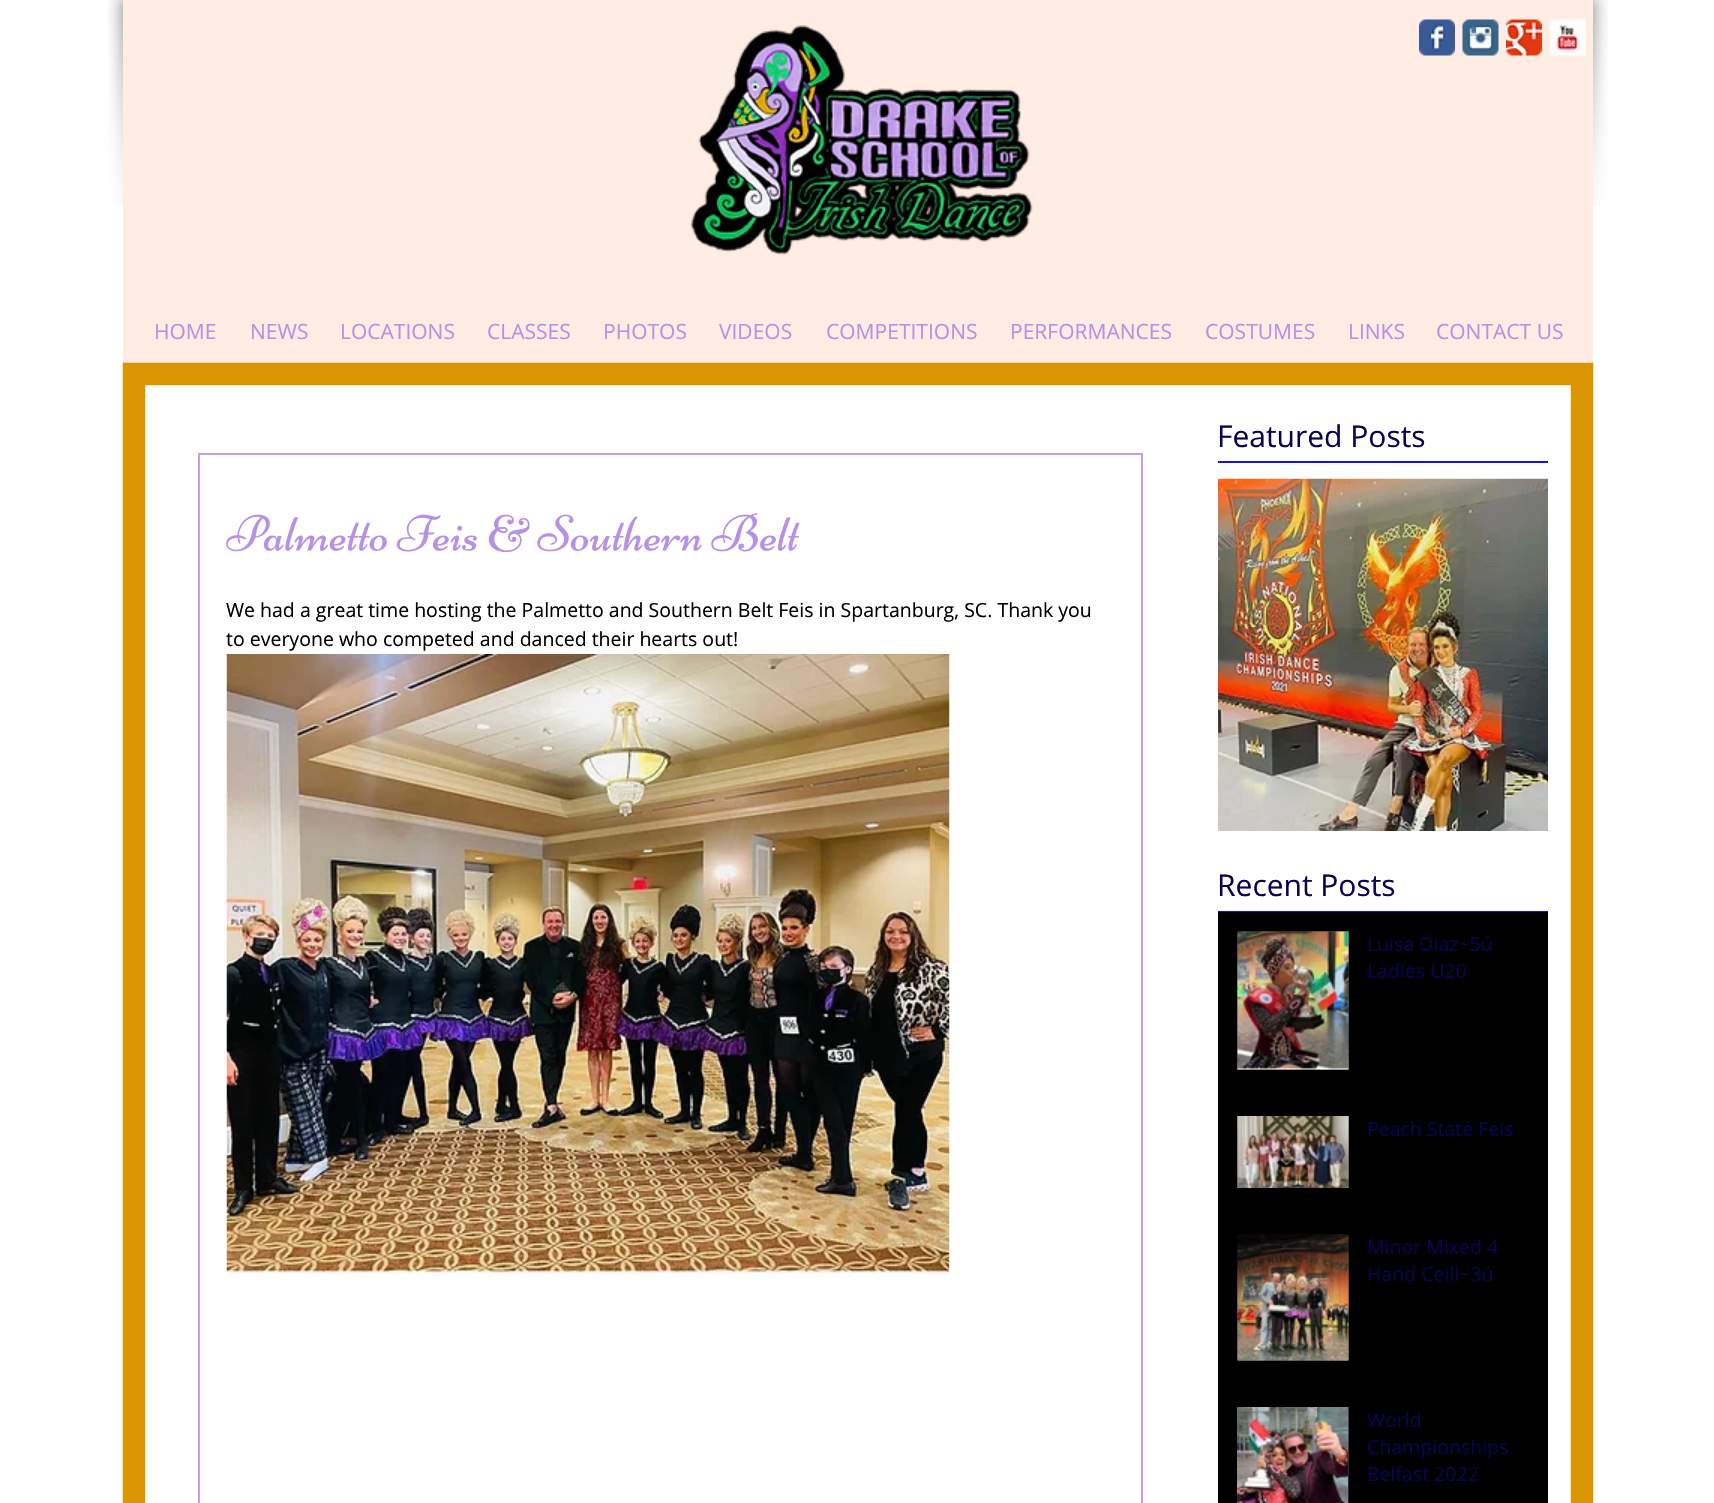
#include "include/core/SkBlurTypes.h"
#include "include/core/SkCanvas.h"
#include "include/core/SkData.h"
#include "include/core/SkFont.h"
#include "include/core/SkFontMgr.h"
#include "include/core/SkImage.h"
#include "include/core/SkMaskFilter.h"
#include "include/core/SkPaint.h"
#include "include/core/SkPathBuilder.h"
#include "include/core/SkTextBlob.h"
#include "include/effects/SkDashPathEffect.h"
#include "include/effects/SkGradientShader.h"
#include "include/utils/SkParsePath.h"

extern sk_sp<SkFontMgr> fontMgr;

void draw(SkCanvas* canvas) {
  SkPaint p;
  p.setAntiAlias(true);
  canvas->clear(SK_ColorWHITE);
  canvas->drawImageRect(SkImages::DeferredFromEncodedData(SkData::MakeFromFileName("images/1.png")), SkRect::MakeLTRB(108, 0, 123, 206), SkSamplingOptions());
  p.setColor(SkColorSetRGB(255, 236, 227));
  canvas->drawRect(SkRect::MakeLTRB(123, 0, 1593, 363), p);
  canvas->drawImageRect(SkImages::DeferredFromEncodedData(SkData::MakeFromFileName("images/2.png")), SkRect::MakeLTRB(1593, 0, 1608, 206), SkSamplingOptions());
  canvas->drawImageRect(SkImages::DeferredFromEncodedData(SkData::MakeFromFileName("images/3.png")), SkRect::MakeLTRB(687, 25, 1038, 255), SkSamplingOptions());
  canvas->drawImageRect(SkImages::DeferredFromEncodedData(SkData::MakeFromFileName("images/4.png")), SkRect::MakeLTRB(1419, 19, 1455, 56), SkSamplingOptions());
  canvas->drawImageRect(SkImages::DeferredFromEncodedData(SkData::MakeFromFileName("images/5.png")), SkRect::MakeLTRB(1462, 19, 1499, 56), SkSamplingOptions());
  canvas->drawImageRect(SkImages::DeferredFromEncodedData(SkData::MakeFromFileName("images/6.png")), SkRect::MakeLTRB(1506, 19, 1542, 56), SkSamplingOptions());
  canvas->drawImageRect(SkImages::DeferredFromEncodedData(SkData::MakeFromFileName("images/7.png")), SkRect::MakeLTRB(1549, 19, 1586, 56), SkSamplingOptions());
  p.setStyle(SkPaint::kStroke_Style);
  p.setStrokeWidth(22.5f);
  p.setColor(SkColorSetRGB(218, 150, 0));
  canvas->drawPath(SkPathBuilder().moveTo(134, 374).lineTo(1582, 374).lineTo(1582, 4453).lineTo(134, 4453).close().detach(), p);
  p.setStrokeWidth(2);
  p.setColor(SkColorSetRGB(194, 159, 233));
  canvas->drawRect(SkRect::MakeLTRB(199, 454, 1142, 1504), p);
  canvas->drawImageRect(SkImages::DeferredFromEncodedData(SkData::MakeFromFileName("images/8.png")), SkRect::MakeLTRB(226, 513, 800, 553), SkSamplingOptions());
  canvas->drawImageRect(SkImages::DeferredFromEncodedData(SkData::MakeFromFileName("images/9.png")), SkRect::MakeLTRB(226, 654, 950, 1278), SkSamplingOptions());
  p.setStyle(SkPaint::kFill_Style);
  p.setColor(SkColorSetRGB(23, 13, 242));
  canvas->drawRect(SkRect::MakeLTRB(1218, 461, 1548, 463), p);
  canvas->drawImageRect(SkImages::DeferredFromEncodedData(SkData::MakeFromFileName("images/10.png")), SkRect::MakeLTRB(1218, 478, 1548, 831), SkSamplingOptions());
  canvas->drawRect(SkRect::MakeLTRB(1218, 911, 1548, 912), p);
  p.setColor(SK_ColorBLACK);
  canvas->drawRect(SkRect::MakeLTRB(1218, 912, 1548, 1503), p);
  canvas->drawImageRect(SkImages::DeferredFromEncodedData(SkData::MakeFromFileName("images/11.png")), SkRect::MakeLTRB(1237, 931, 1349, 1070), SkSamplingOptions());
  canvas->drawImageRect(SkImages::DeferredFromEncodedData(SkData::MakeFromFileName("images/12.png")), SkRect::MakeLTRB(1237, 931, 1349, 1070), SkSamplingOptions());
  canvas->drawImageRect(SkImages::DeferredFromEncodedData(SkData::MakeFromFileName("images/13.png")), SkRect::MakeLTRB(1237, 1116, 1349, 1188), SkSamplingOptions());
  canvas->drawImageRect(SkImages::DeferredFromEncodedData(SkData::MakeFromFileName("images/14.png")), SkRect::MakeLTRB(1237, 1116, 1349, 1188), SkSamplingOptions());
  canvas->drawImageRect(SkImages::DeferredFromEncodedData(SkData::MakeFromFileName("images/15.png")), SkRect::MakeLTRB(1237, 1234, 1349, 1361), SkSamplingOptions());
  canvas->drawImageRect(SkImages::DeferredFromEncodedData(SkData::MakeFromFileName("images/16.png")), SkRect::MakeLTRB(1237, 1234, 1349, 1361), SkSamplingOptions());
  canvas->drawImageRect(SkImages::DeferredFromEncodedData(SkData::MakeFromFileName("images/17.png")), SkRect::MakeLTRB(1237, 1407, 1348, 1503), SkSamplingOptions());
  canvas->drawImageRect(SkImages::DeferredFromEncodedData(SkData::MakeFromFileName("images/18.png")), SkRect::MakeLTRB(1348, 1407, 1349, 1503), SkSamplingOptions());
  SkFont font1(fontMgr->matchFamilyStyle("Open Sans", SkFontStyle::Normal()), 21);
  font1.setSubpixel(true);
  p.setColor(SkColorSetRGB(183, 145, 229));
  canvas->drawString("HOME", 154, 339, font1, p);
  canvas->drawString("NEWS", 250, 339, font1, p);
  canvas->drawString("LOCATIONS", 340, 339, font1, p);
  canvas->drawString("CLASSES", 487, 339, font1, p);
  canvas->drawString("PHOTOS", 603, 339, font1, p);
  canvas->drawString("VIDEOS", 719, 339, font1, p);
  canvas->drawString("COMPETITIONS", 826, 339, font1, p);
  canvas->drawString("PERFORMANCES", 1010, 339, font1, p);
  canvas->drawString("COSTUMES", 1205, 339, font1, p);
  canvas->drawString("LINKS", 1348, 339, font1, p);
  canvas->drawString("CONTACT US", 1436, 339, font1, p);
  SkFont font2(fontMgr->matchFamilyStyle("Open Sans", SkFontStyle::Normal()), 19.5f);
  font2.setSubpixel(true);
  p.setColor(SK_ColorBLACK);
  canvas->drawString("We had a great time hosting the Palmetto and Southern Belt Feis in Spartanburg, SC. Thank you", 226, 617, font2, p);
  canvas->drawString("to everyone who competed and danced their hearts out!", 226, 646, font2, p);
  SkFont font3(fontMgr->matchFamilyStyle("Open Sans", SkFontStyle::Normal()), 30);
  font3.setSubpixel(true);
  p.setColor(SkColorSetRGB(8, 4, 81));
  canvas->drawString("Featured Posts", 1217, 447, font3, p);
  canvas->drawString("Recent Posts", 1217, 896, font3, p);
  canvas->drawString("Luisa Diaz~5ú", 1367, 951, font2, p);
  canvas->drawString("Ladies U20", 1367, 978, font2, p);
  canvas->drawString("Peach State Feis", 1367, 1136, font2, p);
  canvas->drawString("Minor Mixed 4", 1367, 1254, font2, p);
  canvas->drawString("Hand Ceili~3ú", 1367, 1281, font2, p);
  canvas->drawString("World", 1367, 1427, font2, p);
  canvas->drawString("Championships", 1367, 1454, font2, p);
  canvas->drawString("Belfast 2022", 1367, 1481, font2, p);
}
